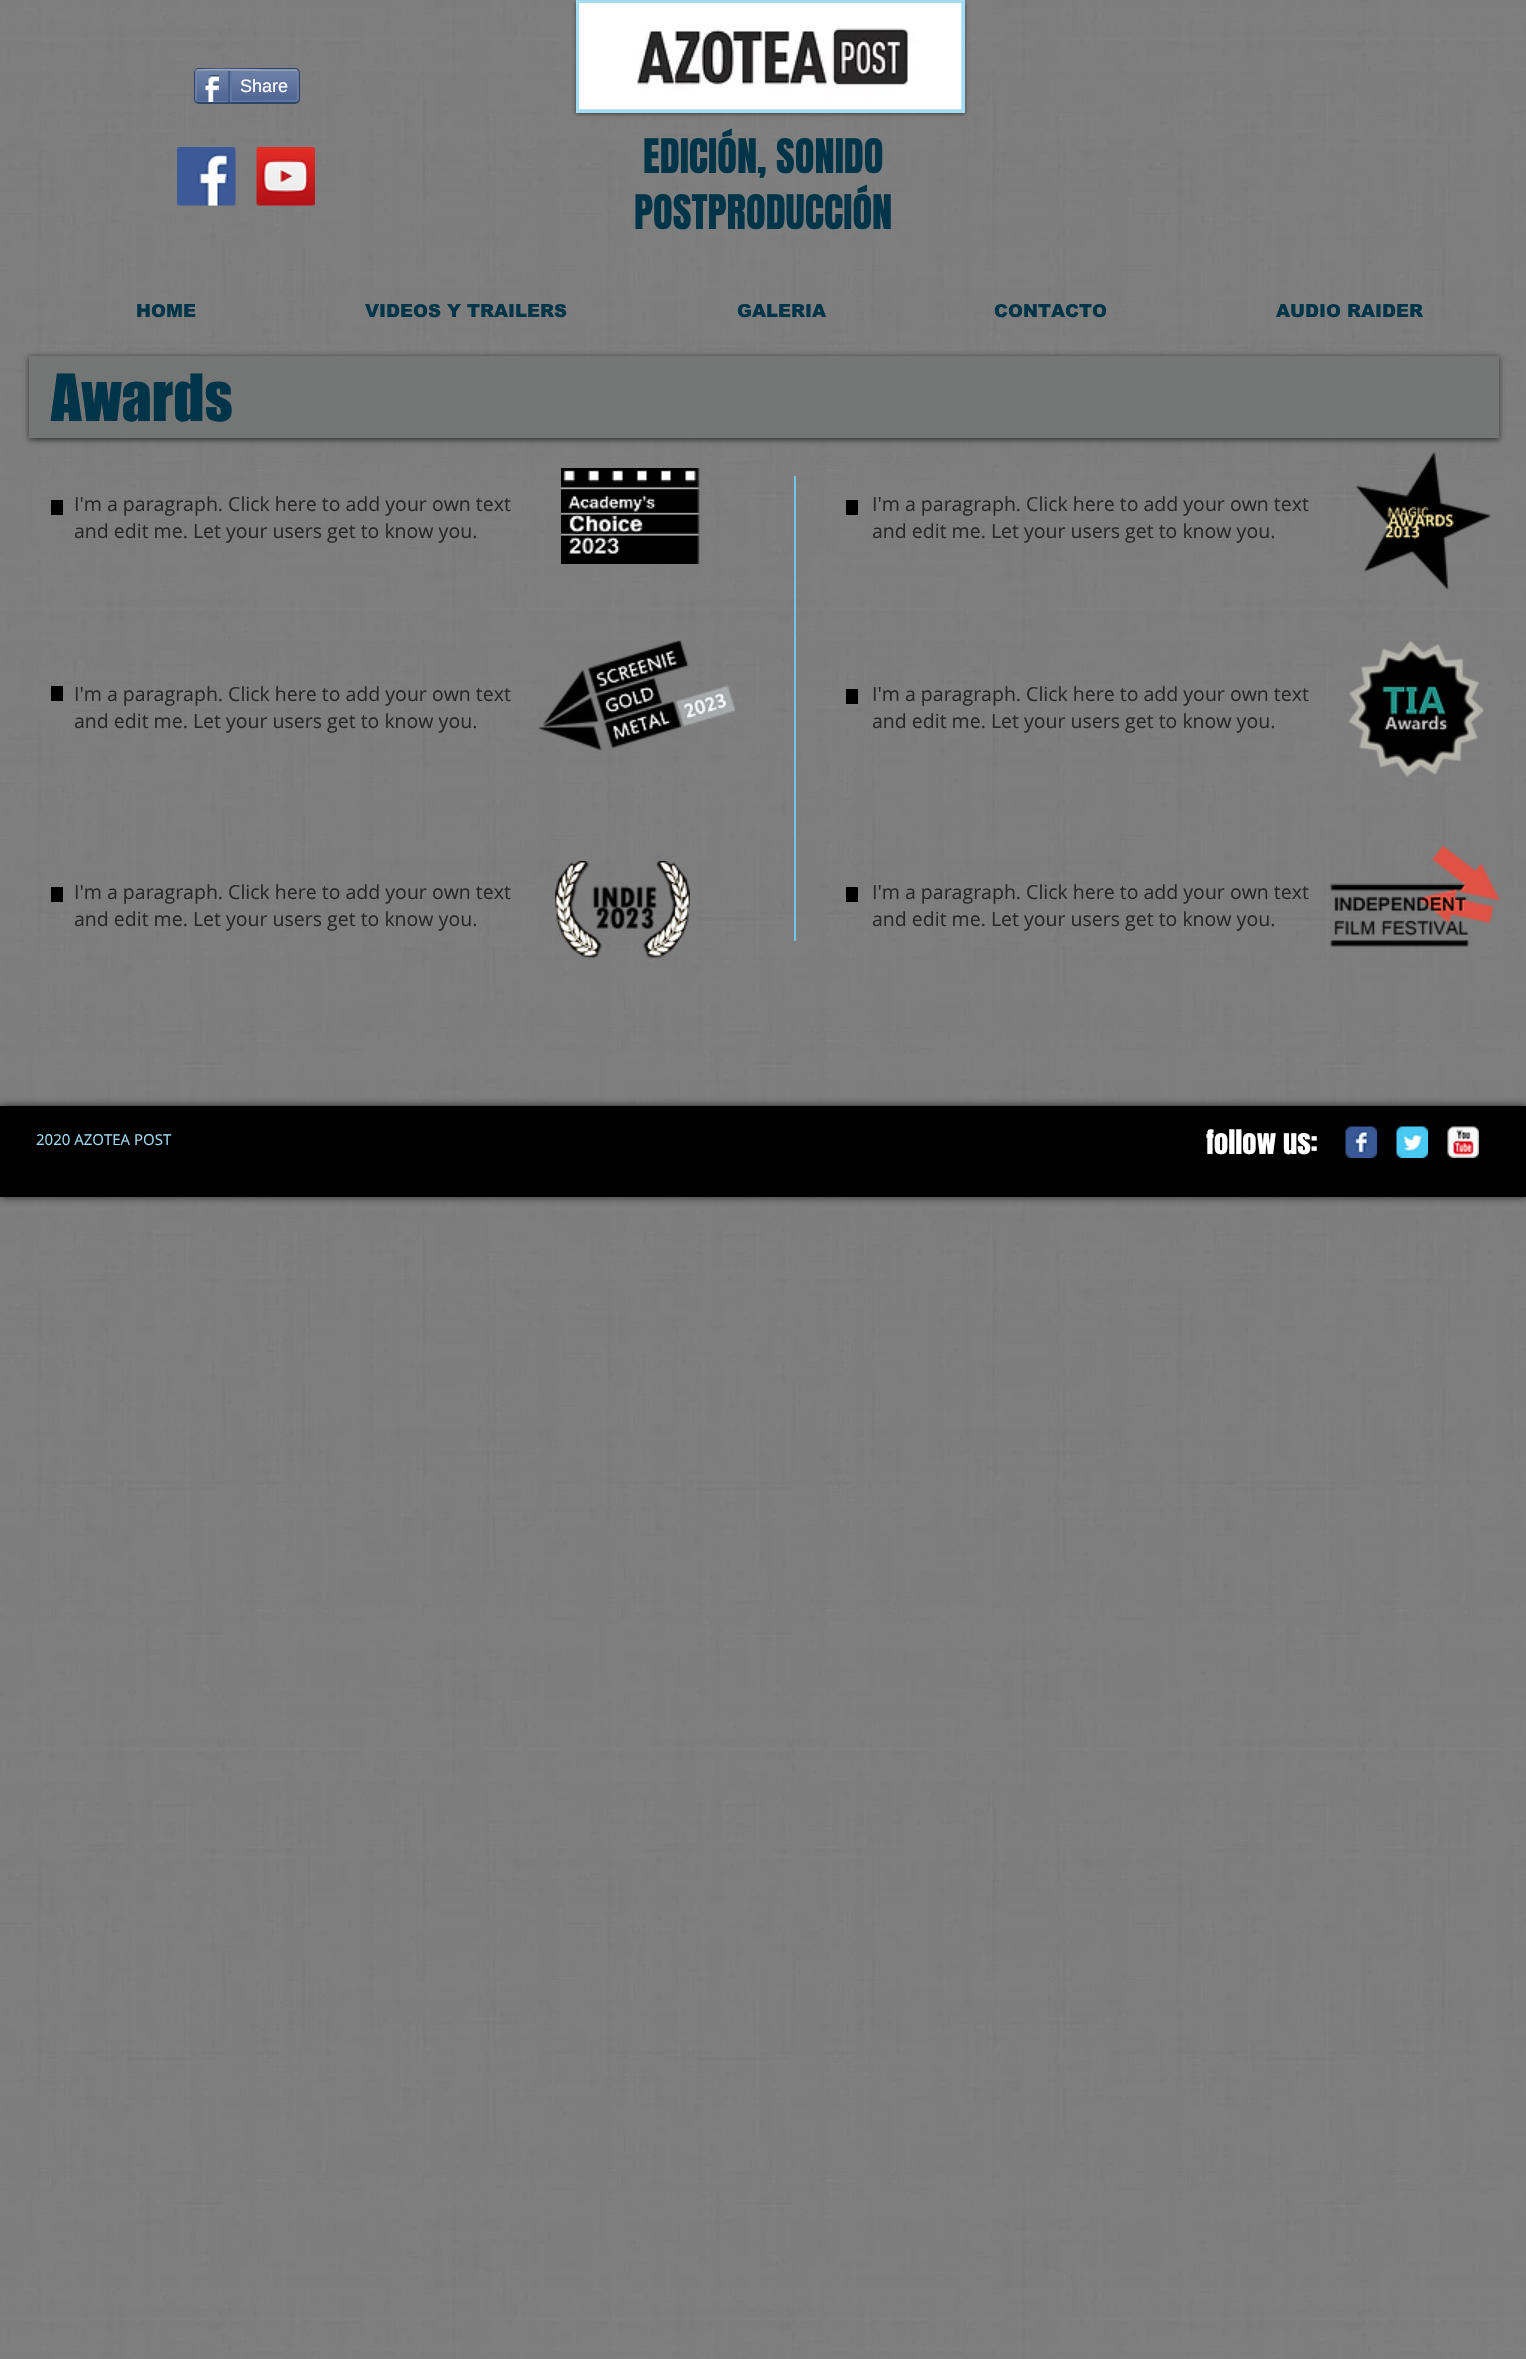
#include "include/core/SkBlurTypes.h"
#include "include/core/SkCanvas.h"
#include "include/core/SkData.h"
#include "include/core/SkFont.h"
#include "include/core/SkFontMgr.h"
#include "include/core/SkImage.h"
#include "include/core/SkMaskFilter.h"
#include "include/core/SkPaint.h"
#include "include/core/SkPathBuilder.h"
#include "include/core/SkTextBlob.h"
#include "include/effects/SkDashPathEffect.h"
#include "include/effects/SkGradientShader.h"
#include "include/utils/SkParsePath.h"

extern sk_sp<SkFontMgr> fontMgr;

void draw(SkCanvas* canvas) {
  SkPaint p;
  p.setAntiAlias(true);
  canvas->clear(SK_ColorWHITE);
  canvas->drawImageRect(SkImages::DeferredFromEncodedData(SkData::MakeFromFileName("images/1.png")), SkRect::MakeLTRB(0, 0, 1526, 2359), SkSamplingOptions());
  p.setStyle(SkPaint::kStroke_Style);
  p.setStrokeWidth(2);
  p.setColor(SkColorSetRGB(45, 69, 101));
  canvas->drawRoundRect(SkRect::MakeLTRB(195, 69, 299, 103), 4, 4, p);
  canvas->drawImageRect(SkImages::DeferredFromEncodedData(SkData::MakeFromFileName("images/2.png")), SkRect::MakeLTRB(195, 70, 299, 102), SkSamplingOptions());
  p.setStrokeWidth(1.5f);
  p.setColor(SkColorSetRGB(154, 171, 198));
  canvas->drawPath(SkPathBuilder().moveTo(196.5f, 70.5f).lineTo(197, 70).cubicTo(198.5f, 69, 271, 70, 279, 70).lineTo(295.5f, 70).lineTo(297, 70.5f).detach(), p);
  p.setColor(SkColorSetRGB(111, 131, 173));
  canvas->drawPath(SkPathBuilder().moveTo(297, 70.5f).cubicTo(297.5f, 71, 298, 71.5f, 298, 72).lineTo(298, 99).cubicTo(298, 99.5f, 297.5f, 100, 297, 100.5f).detach(), p);
  p.setColor(SkColorSetRGB(97, 118, 163));
  canvas->drawPath(SkPathBuilder().moveTo(297, 100.5f).lineTo(295.5f, 101).lineTo(279, 101).cubicTo(271, 101, 198.5f, 102, 197, 101).lineTo(196.5f, 100.5f).detach(), p);
  p.setColor(SkColorSetRGB(111, 131, 173));
  canvas->drawPath(SkPathBuilder().moveTo(196.5f, 100.5f).cubicTo(196, 100, 196, 99.5f, 196, 99).lineTo(196, 72).cubicTo(196, 71.5f, 196, 71, 196.5f, 70.5f).detach(), p);
  canvas->drawImageRect(SkImages::DeferredFromEncodedData(SkData::MakeFromFileName("images/3.png")), SkRect::MakeLTRB(204, 75, 219, 102), SkSamplingOptions());
  p.setStyle(SkPaint::kFill_Style);
  p.setColor(SkColorSetRGB(66, 94, 133));
  canvas->drawRect(SkRect::MakeLTRB(228, 71, 230, 102), p);
  p.setColor(SkColorSetRGB(97, 118, 163));
  canvas->drawRect(SkRect::MakeLTRB(230, 71, 232, 101), p);
  p.setColor(SkColorSetARGB(128, 0, 0, 0));
  p.setMaskFilter(SkMaskFilter::MakeBlur(kNormal_SkBlurStyle, 2));
  canvas->drawRect(SkRect::MakeLTRB(576, 2, 965, 114), p);
  p.setMaskFilter(nullptr);
  p.setColor(SkColorSetRGB(161, 220, 242));
  canvas->drawRect(SkRect::MakeLTRB(576, 0, 965, 113), p);
  canvas->drawImageRect(SkImages::DeferredFromEncodedData(SkData::MakeFromFileName("images/4.png")), SkRect::MakeLTRB(579, 3, 962, 110), SkSamplingOptions());
  canvas->drawImageRect(SkImages::DeferredFromEncodedData(SkData::MakeFromFileName("images/5.png")), SkRect::MakeLTRB(177, 147, 236, 206), SkSamplingOptions());
  canvas->drawImageRect(SkImages::DeferredFromEncodedData(SkData::MakeFromFileName("images/6.png")), SkRect::MakeLTRB(256, 147, 315, 206), SkSamplingOptions());
  p.setColor(SkColorSetARGB(153, 0, 0, 0));
  p.setMaskFilter(SkMaskFilter::MakeBlur(kNormal_SkBlurStyle, 3));
  canvas->drawRect(SkRect::MakeLTRB(29, 357, 1499, 440), p);
  p.setMaskFilter(nullptr);
  p.setColor(SkColorSetRGB(116, 117, 117));
  canvas->drawRect(SkRect::MakeLTRB(29, 356, 1499, 438), p);
  p.setColor(SK_ColorBLACK);
  canvas->drawRect(SkRect::MakeLTRB(51, 500, 63, 515), p);
  canvas->drawImageRect(SkImages::DeferredFromEncodedData(SkData::MakeFromFileName("images/7.png")), SkRect::MakeLTRB(561, 468, 700, 564), SkSamplingOptions());
  p.setColor(SkColorSetRGB(114, 198, 229));
  canvas->drawRect(SkRect::MakeLTRB(794, 476, 796, 941), p);
  p.setColor(SK_ColorBLACK);
  canvas->drawRect(SkRect::MakeLTRB(846, 500, 858, 515), p);
  canvas->drawImageRect(SkImages::DeferredFromEncodedData(SkData::MakeFromFileName("images/8.png")), SkRect::MakeLTRB(1356, 451, 1491, 590), SkSamplingOptions());
  canvas->drawRect(SkRect::MakeLTRB(51, 686, 63, 701), p);
  canvas->drawImageRect(SkImages::DeferredFromEncodedData(SkData::MakeFromFileName("images/9.png")), SkRect::MakeLTRB(538, 640, 735, 750), SkSamplingOptions());
  canvas->drawRect(SkRect::MakeLTRB(846, 689, 858, 704), p);
  canvas->drawImageRect(SkImages::DeferredFromEncodedData(SkData::MakeFromFileName("images/10.png")), SkRect::MakeLTRB(1348, 640, 1484, 777), SkSamplingOptions());
  canvas->drawRect(SkRect::MakeLTRB(51, 887, 63, 902), p);
  canvas->drawImageRect(SkImages::DeferredFromEncodedData(SkData::MakeFromFileName("images/11.png")), SkRect::MakeLTRB(555, 861, 690, 959), SkSamplingOptions());
  canvas->drawRect(SkRect::MakeLTRB(846, 887, 858, 902), p);
  canvas->drawImageRect(SkImages::DeferredFromEncodedData(SkData::MakeFromFileName("images/12.png")), SkRect::MakeLTRB(1330, 845, 1501, 947), SkSamplingOptions());
  p.setColor(SkColorSetARGB(179, 0, 0, 0));
  p.setMaskFilter(SkMaskFilter::MakeBlur(kNormal_SkBlurStyle, 4));
  canvas->drawRect(SkRect::MakeLTRB(0, 1106, 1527, 1197), p);
  p.setMaskFilter(nullptr);
  p.setColor(SK_ColorBLACK);
  canvas->drawRect(SkRect::MakeLTRB(0, 1106, 1526, 1197), p);
  canvas->drawImageRect(SkImages::DeferredFromEncodedData(SkData::MakeFromFileName("images/13.png")), SkRect::MakeLTRB(1345, 1126, 1377, 1158), SkSamplingOptions());
  canvas->drawImageRect(SkImages::DeferredFromEncodedData(SkData::MakeFromFileName("images/14.png")), SkRect::MakeLTRB(1396, 1126, 1428, 1158), SkSamplingOptions());
  canvas->drawImageRect(SkImages::DeferredFromEncodedData(SkData::MakeFromFileName("images/15.png")), SkRect::MakeLTRB(1447, 1126, 1479, 1158), SkSamplingOptions());
  SkFont font1(fontMgr->matchFamilyStyle("Liberation Sans", SkFontStyle::Normal()), 18);
  font1.setSubpixel(true);
  p.setColor(SK_ColorWHITE);
  canvas->drawString("Share", 240, 92, font1, p);
  SkFont font2(fontMgr->matchFamilyStyle("Anton", SkFontStyle::Normal()), 40.5f);
  font2.setSubpixel(true);
  p.setColor(SkColorSetRGB(0, 52, 72));
  canvas->drawString("EDICIÓN, SONIDO", 643, 173, font2, p);
  canvas->drawString("POSTPRODUCCIÓN", 634, 229, font2, p);
  SkFont font3(fontMgr->matchFamilyStyle("arial", SkFontStyle(900, SkFontStyle::kNormal_Width, SkFontStyle::kUpright_Slant)), 18);
  font3.setSubpixel(true);
  canvas->drawString("HOME", 136, 317, font3, p);
  canvas->drawString("VIDEOS Y TRAILERS", 365, 317, font3, p);
  canvas->drawString("GALERIA", 737, 317, font3, p);
  canvas->drawString("CONTACTO", 994, 317, font3, p);
  canvas->drawString("AUDIO RAIDER", 1276, 317, font3, p);
  SkFont font4(fontMgr->matchFamilyStyle("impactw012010", SkFontStyle::Normal()), 60);
  font4.setSubpixel(true);
  canvas->drawString("Awards", 51, 421, font4, p);
  SkFont font5(fontMgr->matchFamilyStyle("Open Sans", SkFontStyle::Normal()), 19.5f);
  font5.setSubpixel(true);
  p.setColor(SkColorSetRGB(39, 39, 39));
  canvas->drawString("I'm a paragraph. Click here to add your own text", 74, 511, font5, p);
  canvas->drawString("and edit me. Let your users get to know you.", 74, 538, font5, p);
  canvas->drawString("I'm a paragraph. Click here to add your own text", 872, 511, font5, p);
  canvas->drawString("and edit me. Let your users get to know you.", 872, 538, font5, p);
  canvas->drawString("I'm a paragraph. Click here to add your own text", 74, 701, font5, p);
  canvas->drawString("and edit me. Let your users get to know you.", 74, 728, font5, p);
  canvas->drawString("I'm a paragraph. Click here to add your own text", 872, 701, font5, p);
  canvas->drawString("and edit me. Let your users get to know you.", 872, 728, font5, p);
  canvas->drawString("I'm a paragraph. Click here to add your own text", 74, 899, font5, p);
  canvas->drawString("and edit me. Let your users get to know you.", 74, 926, font5, p);
  canvas->drawString("I'm a paragraph. Click here to add your own text", 872, 899, font5, p);
  canvas->drawString("and edit me. Let your users get to know you.", 872, 926, font5, p);
  SkFont font6(fontMgr->matchFamilyStyle("Open Sans", SkFontStyle::Normal()), 15);
  font6.setSubpixel(true);
  p.setColor(SkColorSetRGB(161, 220, 242));
  canvas->drawString("2020 AZOTEA POST", 36, 1145, font6, p);
  SkFont font7(fontMgr->matchFamilyStyle("Anton", SkFontStyle::Normal()), 28.5f);
  font7.setSubpixel(true);
  p.setColor(SK_ColorWHITE);
  canvas->drawString("follow us:", 1206, 1154, font7, p);
}
